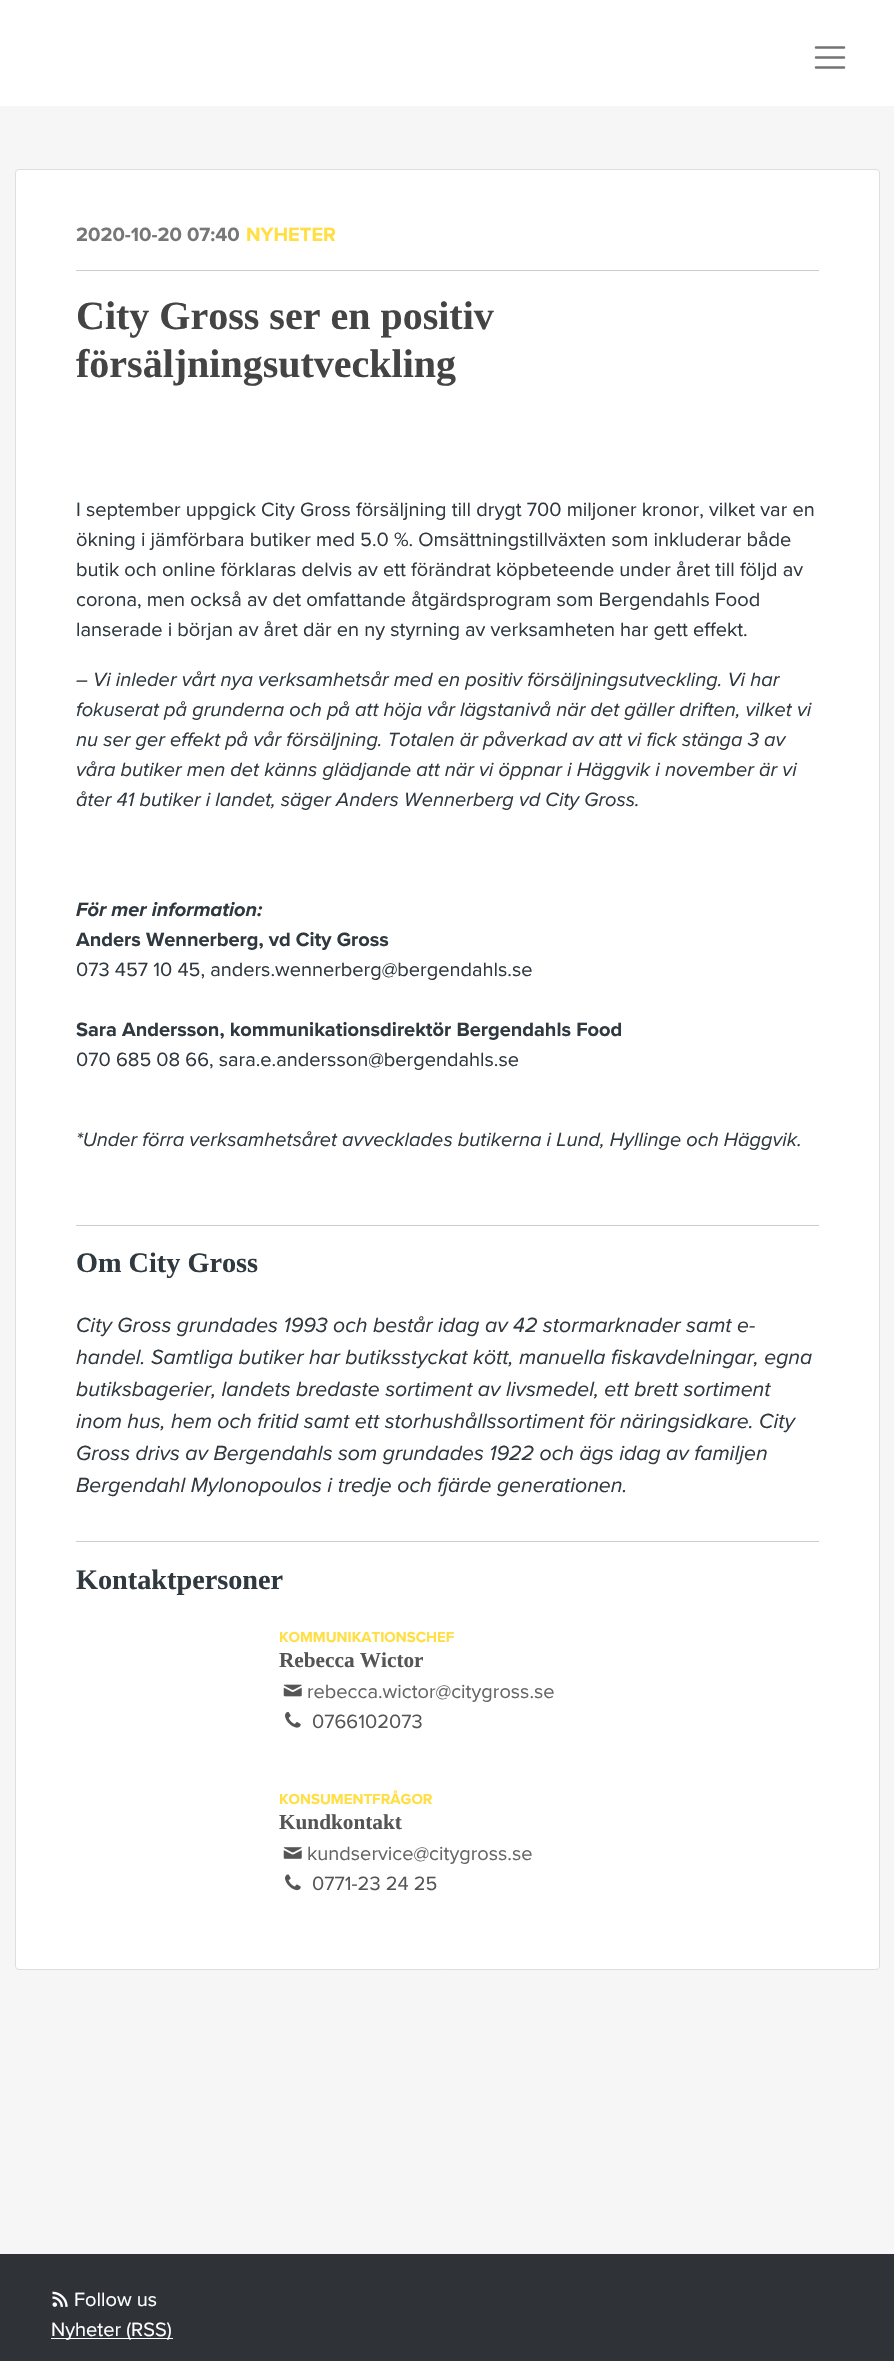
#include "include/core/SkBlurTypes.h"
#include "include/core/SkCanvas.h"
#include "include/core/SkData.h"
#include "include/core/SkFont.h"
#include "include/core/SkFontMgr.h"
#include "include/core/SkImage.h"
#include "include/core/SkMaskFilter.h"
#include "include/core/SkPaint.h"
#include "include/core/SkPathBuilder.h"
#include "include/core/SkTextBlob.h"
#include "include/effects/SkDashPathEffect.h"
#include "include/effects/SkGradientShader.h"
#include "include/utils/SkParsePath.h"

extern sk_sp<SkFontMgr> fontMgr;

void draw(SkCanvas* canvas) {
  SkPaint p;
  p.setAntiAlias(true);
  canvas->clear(SK_ColorWHITE);
  p.setStyle(SkPaint::kStroke_Style);
  p.setStrokeWidth(2.5f);
  p.setStrokeCap(SkPaint::kRound_Cap);
  p.setColor(SkColorSetRGB(115, 115, 115));
  canvas->drawPath(SkPathBuilder().moveTo(816, 47.5f).lineTo(844, 47.5f).moveTo(816, 57.5f).lineTo(844, 57.5f).moveTo(816, 67.5f).lineTo(844, 67.5f).detach(), p);
  p.setStyle(SkPaint::kFill_Style);
  p.setColor(SkColorSetRGB(246, 246, 246));
  canvas->drawRect(SkRect::MakeLTRB(0, 106, 894, 2254), p);
  p.setColor(SK_ColorWHITE);
  canvas->drawRoundRect(SkRect::MakeLTRB(15.5f, 169.5f, 879.5f, 1969.5f), 3.5f, 3.5f, p);
  p.setStyle(SkPaint::kStroke_Style);
  p.setStrokeWidth(1);
  p.setStrokeCap(SkPaint::kButt_Cap);
  p.setColor(SkColorSetRGB(222, 222, 222));
  canvas->drawRoundRect(SkRect::MakeLTRB(15.5f, 169.5f, 879.5f, 1969.5f), 3.5f, 3.5f, p);
  p.setStyle(SkPaint::kFill_Style);
  p.setColor(SkColorSetRGB(203, 206, 207));
  canvas->drawRect(SkRect::MakeLTRB(76, 270, 819, 271), p);
  canvas->drawRect(SkRect::MakeLTRB(76, 1225, 819, 1226), p);
  canvas->drawRect(SkRect::MakeLTRB(76, 1541, 819, 1542), p);
  canvas->drawImageRect(SkImages::DeferredFromEncodedData(SkData::MakeFromFileName("images/1.png")), SkRect::MakeLTRB(283, 1684, 302, 1697), SkSamplingOptions());
  canvas->drawImageRect(SkImages::DeferredFromEncodedData(SkData::MakeFromFileName("images/2.png")), SkRect::MakeLTRB(285, 1711, 301, 1728), SkSamplingOptions());
  canvas->drawImageRect(SkImages::DeferredFromEncodedData(SkData::MakeFromFileName("images/3.png")), SkRect::MakeLTRB(283, 1847, 302, 1859), SkSamplingOptions());
  canvas->drawImageRect(SkImages::DeferredFromEncodedData(SkData::MakeFromFileName("images/4.png")), SkRect::MakeLTRB(285, 1874, 301, 1891), SkSamplingOptions());
  p.setColor(SkColorSetRGB(47, 50, 55));
  canvas->drawRect(SkRect::MakeLTRB(0, 2254, 894, 2361), p);
  canvas->drawImageRect(SkImages::DeferredFromEncodedData(SkData::MakeFromFileName("images/5.png")), SkRect::MakeLTRB(52, 2291, 68, 2307), SkSamplingOptions());
  p.setColor(SK_ColorWHITE);
  canvas->drawRect(SkRect::MakeLTRB(51, 2338, 173, 2339), p);
  SkFont font1(fontMgr->matchFamilyStyle("Proxima Nova", SkFontStyle::Bold()), 20);
  font1.setSubpixel(true);
  p.setColor(SkColorSetRGB(119, 119, 119));
  canvas->drawString("2020-10-20 07:40", 76, 241, font1, p);
  p.setColor(SkColorSetRGB(255, 223, 67));
  canvas->drawString("NYHETER", 246, 241, font1, p);
  SkFont font2(fontMgr->matchFamilyStyle("Liberation Serif", SkFontStyle::Bold()), 40);
  font2.setSubpixel(true);
  p.setColor(SkColorSetRGB(68, 68, 68));
  canvas->drawString("City Gross ser en positiv", 76, 329, font2, p);
  canvas->drawString("försäljningsutveckling", 76, 377, font2, p);
  SkFont font3(fontMgr->matchFamilyStyle("Proxima Nova", SkFontStyle::Normal()), 20);
  font3.setSubpixel(true);
  p.setColor(SkColorSetRGB(48, 57, 63));
  canvas->drawString("I september uppgick City Gross försäljning till drygt 700 miljoner kronor, vilket var en", 76, 516, font3, p);
  canvas->drawString("ökning i jämförbara butiker med 5.0 %. Omsättningstillväxten som inkluderar både", 76, 546, font3, p);
  canvas->drawString("butik och online förklaras delvis av ett förändrat köpbeteende under året till följd av", 76, 576, font3, p);
  canvas->drawString("corona, men också av det omfattande åtgärdsprogram som Bergendahls Food", 76, 606, font3, p);
  canvas->drawString("lanserade i början av året där en ny styrning av verksamheten har gett effekt.", 76, 636, font3, p);
  SkFont font4(fontMgr->matchFamilyStyle("Proxima Nova", SkFontStyle::Italic()), 20);
  font4.setSubpixel(true);
  canvas->drawString("– Vi inleder vårt nya verksamhetsår med en positiv försäljningsutveckling. Vi har", 76, 686, font4, p);
  canvas->drawString("fokuserat på grunderna och på att höja vår lägstanivå när det gäller driften, vilket vi", 76, 716, font4, p);
  canvas->drawString("nu ser ger effekt på vår försäljning. Totalen är påverkad av att vi fick stänga 3 av", 76, 746, font4, p);
  canvas->drawString("våra butiker men det känns glädjande att när vi öppnar i Häggvik i november är vi", 76, 776, font4, p);
  canvas->drawString("åter 41 butiker i landet, säger Anders Wennerberg vd City Gross.", 76, 806, font4, p);
  SkFont font5(fontMgr->matchFamilyStyle("Proxima Nova", SkFontStyle::BoldItalic()), 20);
  font5.setSubpixel(true);
  canvas->drawString("För mer information:", 76, 916, font5, p);
  canvas->drawString("Anders Wennerberg, vd City Gross", 76, 946, font1, p);
  canvas->drawString("073 457 10 45, anders.wennerberg@bergendahls.se", 76, 976, font3, p);
  canvas->drawString("Sara Andersson, kommunikationsdirektör Bergendahls Food", 76, 1036, font1, p);
  canvas->drawString("070 685 08 66, sara.e.andersson@bergendahls.se", 76, 1066, font3, p);
  canvas->drawString("*Under förra verksamhetsåret avvecklades butikerna i Lund, Hyllinge och Häggvik.", 76, 1146, font4, p);
  SkFont font6(fontMgr->matchFamilyStyle("Liberation Serif", SkFontStyle::Bold()), 28.25f);
  font6.setSubpixel(true);
  canvas->drawString("Om City Gross", 76, 1272, font6, p);
  SkFont font7(fontMgr->matchFamilyStyle("Proxima Nova", SkFontStyle::Italic()), 21.25f);
  font7.setSubpixel(true);
  canvas->drawString("City Gross grundades 1993 och består idag av 42 stormarknader samt e-", 76, 1332, font7, p);
  canvas->drawString("handel. Samtliga butiker har butiksstyckat kött, manuella fiskavdelningar, egna", 76, 1364, font7, p);
  canvas->drawString("butiksbagerier, landets bredaste sortiment av livsmedel, ett brett sortiment", 76, 1396, font7, p);
  canvas->drawString("inom hus, hem och fritid samt ett storhushållssortiment för näringsidkare. City", 76, 1428, font7, p);
  canvas->drawString("Gross drivs av Bergendahls som grundades 1922 och ägs idag av familjen", 76, 1460, font7, p);
  canvas->drawString("Bergendahl Mylonopoulos i tredje och fjärde generationen.", 76, 1492, font7, p);
  canvas->drawString("Kontaktpersoner", 76, 1589, font6, p);
  SkFont font8(fontMgr->matchFamilyStyle("Proxima Nova", SkFontStyle::Bold()), 15);
  font8.setSubpixel(true);
  p.setColor(SkColorSetRGB(255, 223, 67));
  canvas->drawString("KOMMUNIKATIONSCHEF", 279, 1642, font8, p);
  SkFont font9(fontMgr->matchFamilyStyle("Liberation Serif", SkFontStyle::Bold()), 21.25f);
  font9.setSubpixel(true);
  p.setColor(SkColorSetRGB(85, 85, 85));
  canvas->drawString("Rebecca Wictor", 279, 1667, font9, p);
  p.setColor(SkColorSetRGB(102, 102, 102));
  canvas->drawString("rebecca.wictor@citygross.se", 307, 1698, font3, p);
  p.setColor(SkColorSetRGB(85, 85, 85));
  canvas->drawString("0766102073", 312, 1728, font3, p);
  p.setColor(SkColorSetRGB(255, 223, 67));
  canvas->drawString("KONSUMENTFRÅGOR", 279, 1804, font8, p);
  p.setColor(SkColorSetRGB(85, 85, 85));
  canvas->drawString("Kundkontakt", 279, 1829, font9, p);
  p.setColor(SkColorSetRGB(102, 102, 102));
  canvas->drawString("kundservice@citygross.se", 307, 1860, font3, p);
  p.setColor(SkColorSetRGB(85, 85, 85));
  canvas->drawString("0771-23 24 25", 312, 1890, font3, p);
  p.setColor(SK_ColorWHITE);
  canvas->drawString("Follow us", 74, 2306, font3, p);
  canvas->drawString("Nyheter (RSS)", 51, 2336, font3, p);
}
